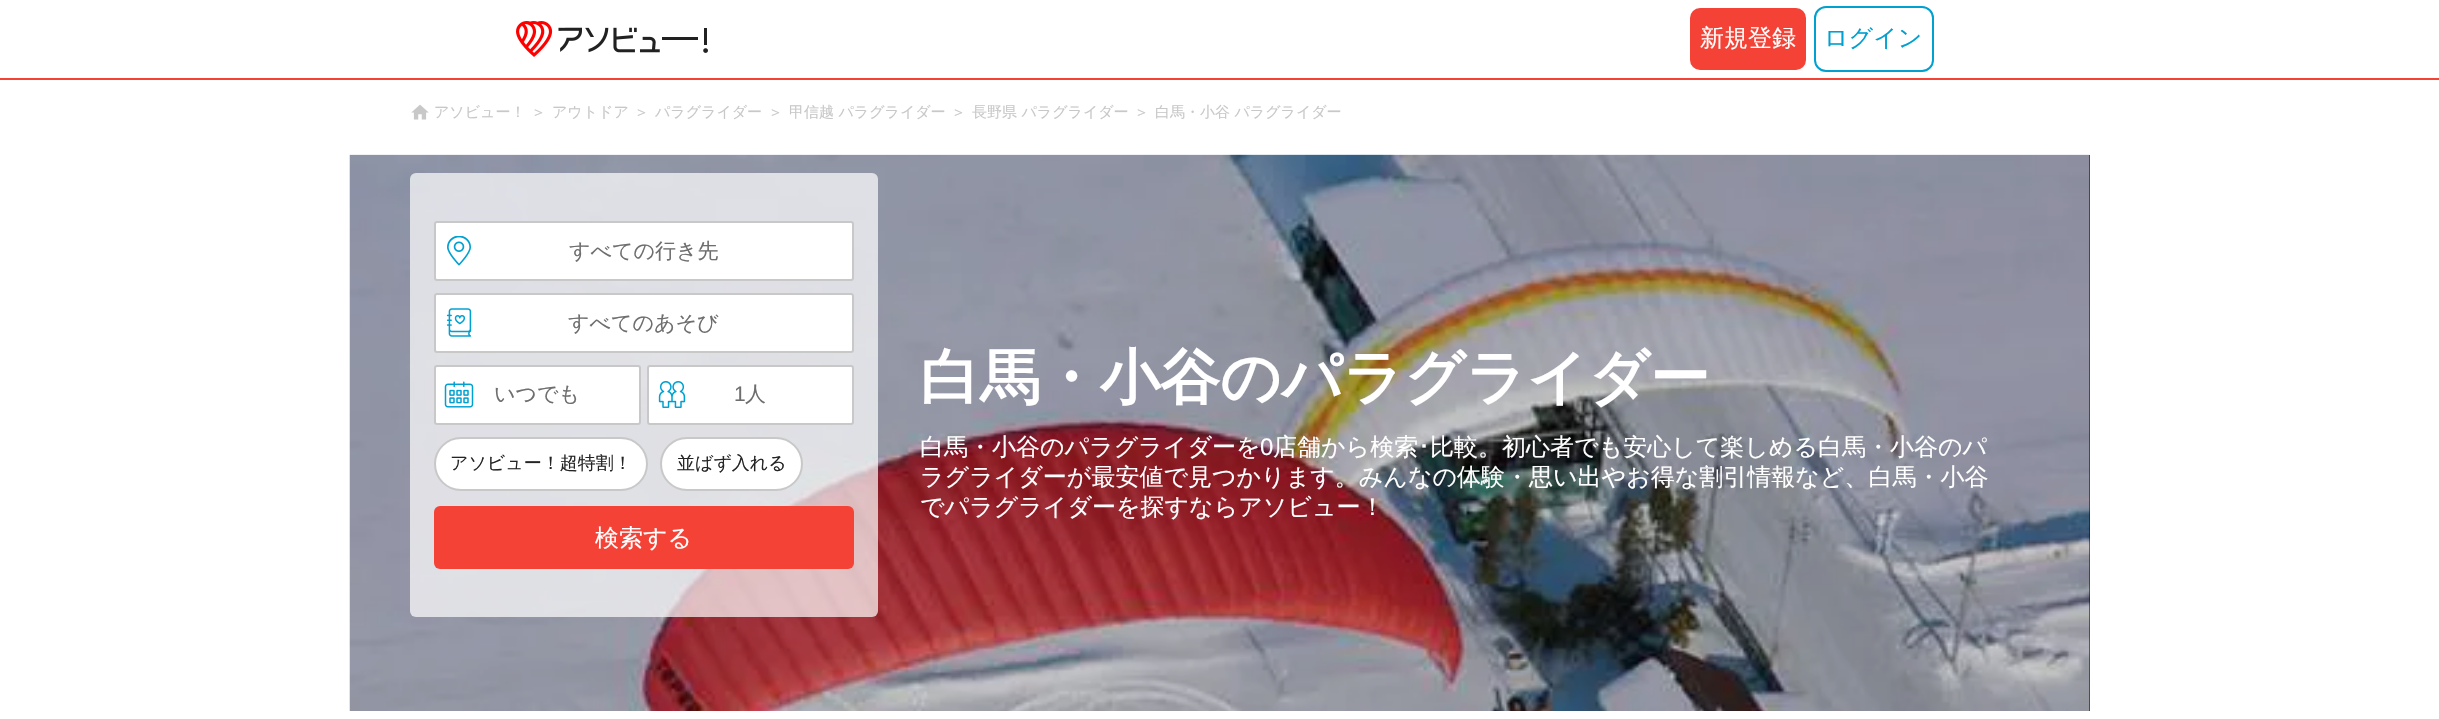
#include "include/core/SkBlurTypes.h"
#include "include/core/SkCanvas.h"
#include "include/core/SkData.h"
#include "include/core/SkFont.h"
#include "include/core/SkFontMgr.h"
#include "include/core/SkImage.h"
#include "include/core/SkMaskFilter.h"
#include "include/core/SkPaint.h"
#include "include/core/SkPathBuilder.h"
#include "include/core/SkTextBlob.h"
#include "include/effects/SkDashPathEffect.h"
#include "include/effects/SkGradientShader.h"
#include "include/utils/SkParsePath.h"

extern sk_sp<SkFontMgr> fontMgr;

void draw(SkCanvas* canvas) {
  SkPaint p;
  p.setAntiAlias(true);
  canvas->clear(SK_ColorWHITE);
  p.setColor(SkColorSetRGB(244, 67, 54));
  canvas->drawRect(SkRect::MakeLTRB(0, 78, 2439, 80), p);
  canvas->drawImageRect(SkImages::DeferredFromEncodedData(SkData::MakeFromFileName("images/1.png")), SkRect::MakeLTRB(516, 21, 708, 57), SkSamplingOptions());
  canvas->drawRoundRect(SkRect::MakeLTRB(1689, 7, 1807, 71), 11, 11, p);
  p.setStyle(SkPaint::kStroke_Style);
  p.setStrokeWidth(2);
  p.setColor(SK_ColorWHITE);
  canvas->drawRoundRect(SkRect::MakeLTRB(1689, 7, 1807, 71), 11, 11, p);
  p.setColor(SkColorSetRGB(0, 160, 208));
  canvas->drawRoundRect(SkRect::MakeLTRB(1815, 7, 1933, 71), 11, 11, p);
  canvas->drawImageRect(SkImages::DeferredFromEncodedData(SkData::MakeFromFileName("images/2.png")), SkRect::MakeLTRB(411, 104, 429, 120), SkSamplingOptions());
  p.setStyle(SkPaint::kFill_Style);
  p.setColor(SK_ColorBLACK);
  canvas->drawRect(SkRect::MakeLTRB(350, 155, 2090, 711), p);
  canvas->drawImageRect(SkImages::DeferredFromEncodedData(SkData::MakeFromFileName("images/3.png")), SkRect::MakeLTRB(349, 154, 2090, 711), SkSamplingOptions());
  p.setColor(SkColorSetARGB(179, 255, 255, 255));
  canvas->drawRoundRect(SkRect::MakeLTRB(410, 173, 878, 617), 6, 6, p);
  p.setColor(SK_ColorWHITE);
  canvas->drawRoundRect(SkRect::MakeLTRB(435, 222, 853, 280), 2, 2, p);
  p.setStyle(SkPaint::kStroke_Style);
  p.setColor(SkColorSetRGB(200, 200, 200));
  canvas->drawRoundRect(SkRect::MakeLTRB(435, 222, 853, 280), 2, 2, p);
  canvas->drawImageRect(SkImages::DeferredFromEncodedData(SkData::MakeFromFileName("images/4.png")), SkRect::MakeLTRB(447, 236, 471, 266), SkSamplingOptions());
  p.setStyle(SkPaint::kFill_Style);
  p.setColor(SK_ColorWHITE);
  canvas->drawRoundRect(SkRect::MakeLTRB(435, 294, 853, 352), 2, 2, p);
  p.setStyle(SkPaint::kStroke_Style);
  p.setColor(SkColorSetRGB(200, 200, 200));
  canvas->drawRoundRect(SkRect::MakeLTRB(435, 294, 853, 352), 2, 2, p);
  canvas->drawImageRect(SkImages::DeferredFromEncodedData(SkData::MakeFromFileName("images/5.png")), SkRect::MakeLTRB(446, 308, 472, 337), SkSamplingOptions());
  p.setStyle(SkPaint::kFill_Style);
  p.setColor(SK_ColorWHITE);
  canvas->drawRoundRect(SkRect::MakeLTRB(435, 366, 640, 424), 2, 2, p);
  p.setStyle(SkPaint::kStroke_Style);
  p.setColor(SkColorSetRGB(200, 200, 200));
  canvas->drawRoundRect(SkRect::MakeLTRB(435, 366, 640, 424), 2, 2, p);
  canvas->drawImageRect(SkImages::DeferredFromEncodedData(SkData::MakeFromFileName("images/6.png")), SkRect::MakeLTRB(444, 381, 474, 408), SkSamplingOptions());
  p.setStyle(SkPaint::kFill_Style);
  p.setColor(SK_ColorWHITE);
  canvas->drawRoundRect(SkRect::MakeLTRB(648, 366, 853, 424), 2, 2, p);
  p.setStyle(SkPaint::kStroke_Style);
  p.setColor(SkColorSetRGB(200, 200, 200));
  canvas->drawRoundRect(SkRect::MakeLTRB(648, 366, 853, 424), 2, 2, p);
  canvas->drawImageRect(SkImages::DeferredFromEncodedData(SkData::MakeFromFileName("images/7.png")), SkRect::MakeLTRB(658, 381, 686, 408), SkSamplingOptions());
  p.setStyle(SkPaint::kFill_Style);
  p.setColor(SK_ColorWHITE);
  canvas->drawRoundRect(SkRect::MakeLTRB(435, 438, 647, 490), 26, 26, p);
  p.setStyle(SkPaint::kStroke_Style);
  p.setColor(SkColorSetRGB(200, 200, 200));
  canvas->drawRoundRect(SkRect::MakeLTRB(435, 438, 647, 490), 26, 26, p);
  p.setStyle(SkPaint::kFill_Style);
  p.setColor(SK_ColorWHITE);
  canvas->drawRoundRect(SkRect::MakeLTRB(661, 438, 802, 490), 26, 26, p);
  p.setStyle(SkPaint::kStroke_Style);
  p.setColor(SkColorSetRGB(200, 200, 200));
  canvas->drawRoundRect(SkRect::MakeLTRB(661, 438, 802, 490), 26, 26, p);
  p.setStyle(SkPaint::kFill_Style);
  p.setColor(SkColorSetRGB(244, 67, 54));
  canvas->drawRoundRect(SkRect::MakeLTRB(434, 506, 854, 569), 6, 6, p);
  SkFont font1(fontMgr->matchFamilyStyle("WenQuanYi Zen Hei", SkFontStyle(500, SkFontStyle::kNormal_Width, SkFontStyle::kUpright_Slant)), 24);
  font1.setSubpixel(true);
  p.setColor(SK_ColorWHITE);
  canvas->drawString("新規登録", 1700, 46, font1, p);
  p.setColor(SkColorSetRGB(0, 160, 208));
  canvas->drawString("ログイン", 1824, 46, font1, p);
  SkFont font2(fontMgr->matchFamilyStyle("WenQuanYi Zen Hei", SkFontStyle(500, SkFontStyle::kNormal_Width, SkFontStyle::kUpright_Slant)), 15);
  font2.setSubpixel(true);
  p.setColor(SkColorSetRGB(200, 200, 200));
  canvas->drawString("アソビュー！", 434, 117, font2, p);
  canvas->drawString("＞", 531, 117, font2, p);
  canvas->drawString("アウトドア", 552, 117, font2, p);
  canvas->drawString("＞", 634, 117, font2, p);
  canvas->drawString("パラグライダー", 655, 117, font2, p);
  canvas->drawString("＞", 768, 117, font2, p);
  canvas->drawString("甲信越 パラグライダー", 789, 117, font2, p);
  canvas->drawString("＞", 951, 117, font2, p);
  canvas->drawString("長野県 パラグライダー", 972, 117, font2, p);
  canvas->drawString("＞", 1134, 117, font2, p);
  canvas->drawString("白馬・小谷 パラグライダー", 1155, 117, font2, p);
  SkFont font3(fontMgr->matchFamilyStyle("WenQuanYi Zen Hei", SkFontStyle(500, SkFontStyle::kNormal_Width, SkFontStyle::kUpright_Slant)), 21);
  font3.setSubpixel(true);
  p.setColor(SkColorSetRGB(110, 110, 110));
  canvas->drawString("すべての行き先", 569, 258, font3, p);
  canvas->drawString("すべてのあそび", 568, 330, font3, p);
  canvas->drawString("いつでも", 494, 401, font3, p);
  SkFont font4(fontMgr->matchFamilyStyle("Liberation Sans", SkFontStyle::Normal()), 21);
  font4.setSubpixel(true);
  canvas->drawString("1", 734, 401, font4, p);
  canvas->drawString("人", 745, 401, font3, p);
  SkFont font5(fontMgr->matchFamilyStyle("WenQuanYi Zen Hei", SkFontStyle(500, SkFontStyle::kNormal_Width, SkFontStyle::kUpright_Slant)), 18);
  font5.setSubpixel(true);
  p.setColor(SkColorSetRGB(36, 36, 36));
  canvas->drawString("アソビュー！超特割！", 450, 469, font5, p);
  canvas->drawString("並ばず入れる", 677, 469, font5, p);
  p.setColor(SK_ColorWHITE);
  canvas->drawString("検索する", 595, 546, font1, p);
  SkFont font6(fontMgr->matchFamilyStyle("WenQuanYi Zen Hei", SkFontStyle::Bold()), 60);
  font6.setSubpixel(true);
  canvas->drawString("白馬・小谷のパラグライダー", 920, 398, font6, p);
  canvas->drawString("白馬・小谷のパラグライダーを", 920, 455, font1, p);
  SkFont font7(fontMgr->matchFamilyStyle("Liberation Sans", SkFontStyle::Normal()), 24);
  font7.setSubpixel(true);
  canvas->drawString("0", 1260, 455, font7, p);
  canvas->drawString("店舗から検索", 1273, 455, font1, p);
  SkFont font8(fontMgr->matchFamilyStyle("IPAGothic", SkFontStyle::Normal()), 24);
  font8.setSubpixel(true);
  canvas->drawString("･", 1418, 455, font8, p);
  canvas->drawString("比較。初心者でも安心して楽しめる白馬・小谷のパ", 1430, 455, font1, p);
  canvas->drawString("ラグライダーが最安値で見つかります。みんなの体験・思い出やお得な割引情報など、白馬・小谷", 920, 485, font1, p);
  canvas->drawString("でパラグライダーを探すならアソビュー！", 920, 515, font1, p);
}
